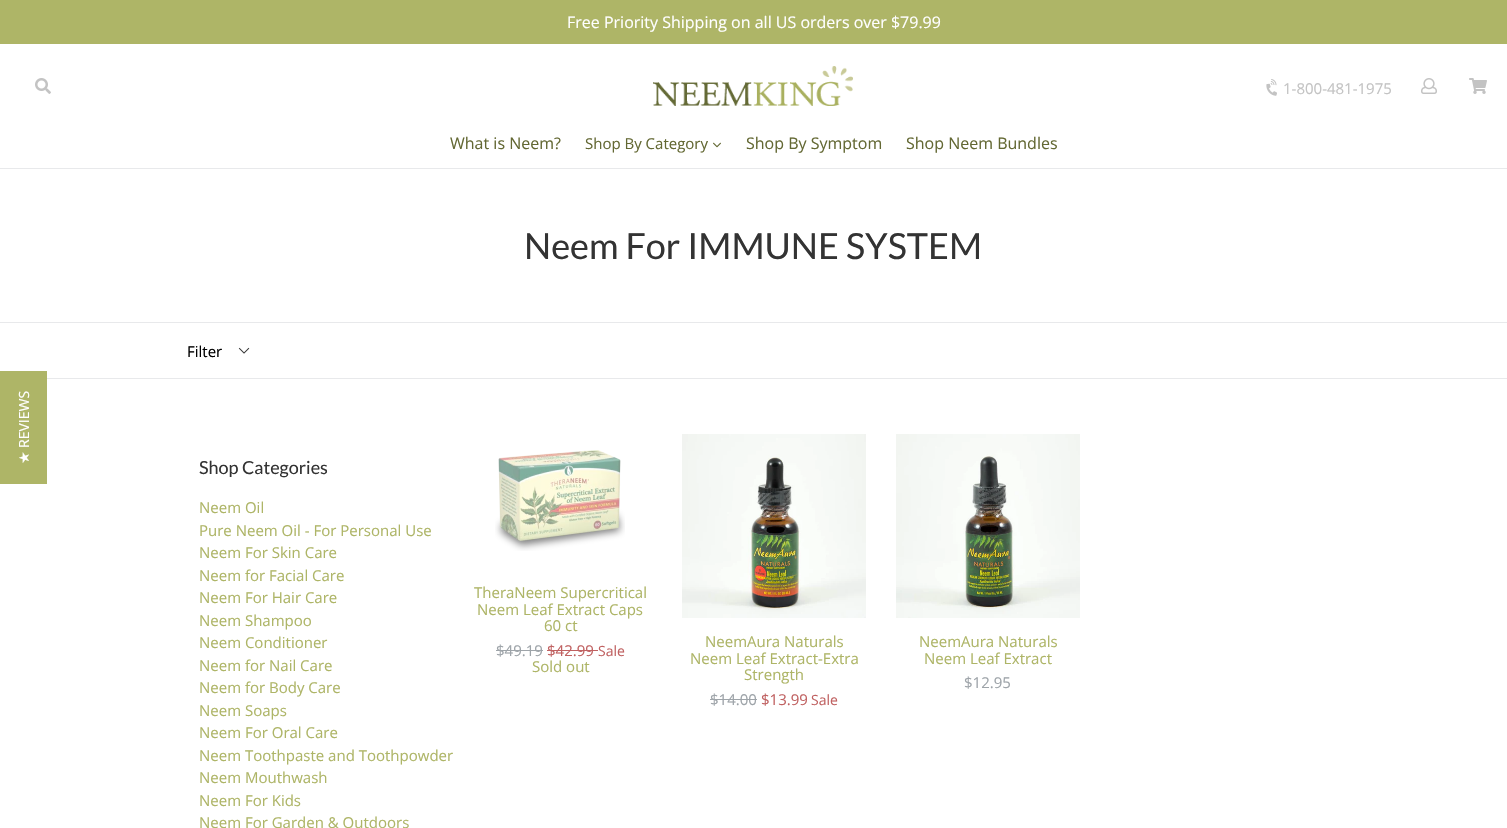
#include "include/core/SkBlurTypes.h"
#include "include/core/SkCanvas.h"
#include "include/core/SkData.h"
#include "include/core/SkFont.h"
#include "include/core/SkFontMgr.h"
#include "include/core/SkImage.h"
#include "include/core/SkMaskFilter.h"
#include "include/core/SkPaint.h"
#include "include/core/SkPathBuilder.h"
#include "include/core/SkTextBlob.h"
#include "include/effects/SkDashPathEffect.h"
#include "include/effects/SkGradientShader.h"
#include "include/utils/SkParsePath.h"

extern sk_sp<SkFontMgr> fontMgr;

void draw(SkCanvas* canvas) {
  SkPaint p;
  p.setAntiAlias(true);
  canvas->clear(SK_ColorWHITE);
  p.setColor(SkColorSetRGB(174, 181, 103));
  canvas->drawRect(SkRect::MakeLTRB(0, 0, 1507, 44), p);
  canvas->drawImageRect(SkImages::DeferredFromEncodedData(SkData::MakeFromFileName("images/1.png")), SkRect::MakeLTRB(35, 78, 51, 94), SkSamplingOptions());
  canvas->drawImageRect(SkImages::DeferredFromEncodedData(SkData::MakeFromFileName("images/2.png")), SkRect::MakeLTRB(653, 66, 853, 106), SkSamplingOptions());
  canvas->drawImageRect(SkImages::DeferredFromEncodedData(SkData::MakeFromFileName("images/3.png")), SkRect::MakeLTRB(1266, 79, 1277, 96), SkSamplingOptions());
  canvas->drawImageRect(SkImages::DeferredFromEncodedData(SkData::MakeFromFileName("images/4.png")), SkRect::MakeLTRB(1421, 78, 1437, 94), SkSamplingOptions());
  canvas->drawImageRect(SkImages::DeferredFromEncodedData(SkData::MakeFromFileName("images/5.png")), SkRect::MakeLTRB(1469, 78, 1487, 94), SkSamplingOptions());
  p.setColor(SkColorSetRGB(232, 233, 235));
  canvas->drawRect(SkRect::MakeLTRB(0, 168, 1507, 169), p);
  canvas->drawImageRect(SkImages::DeferredFromEncodedData(SkData::MakeFromFileName("images/6.png")), SkRect::MakeLTRB(713, 142, 721, 148), SkSamplingOptions());
  p.setColor(SkColorSetRGB(174, 181, 103));
  canvas->drawRect(SkRect::MakeLTRB(0, 371, 47, 484), p);
  p.setColor(SkColorSetRGB(232, 233, 235));
  canvas->drawRect(SkRect::MakeLTRB(0, 322, 1507, 323), p);
  canvas->drawRect(SkRect::MakeLTRB(47, 378, 1507, 379), p);
  canvas->drawImageRect(SkImages::DeferredFromEncodedData(SkData::MakeFromFileName("images/7.png")), SkRect::MakeLTRB(238, 347, 250, 354), SkSamplingOptions());
  canvas->drawImageRect(SkImages::DeferredFromEncodedData(SkData::MakeFromFileName("images/8.png")), SkRect::MakeLTRB(495, 450, 625, 551), SkSamplingOptions());
  p.setColor(SkColorSetRGB(158, 164, 169));
  canvas->drawRect(SkRect::MakeLTRB(496, 650, 543, 651), p);
  p.setColor(SkColorSetRGB(192, 97, 97));
  canvas->drawRect(SkRect::MakeLTRB(547, 650, 598, 651), p);
  canvas->drawImageRect(SkImages::DeferredFromEncodedData(SkData::MakeFromFileName("images/9.png")), SkRect::MakeLTRB(682, 434, 866, 618), SkSamplingOptions());
  p.setColor(SkColorSetRGB(158, 164, 169));
  canvas->drawRect(SkRect::MakeLTRB(710, 699, 757, 700), p);
  canvas->drawImageRect(SkImages::DeferredFromEncodedData(SkData::MakeFromFileName("images/10.png")), SkRect::MakeLTRB(896, 434, 1080, 618), SkSamplingOptions());
  SkFont font1(fontMgr->matchFamilyStyle("Open Sans", SkFontStyle::Normal()), 16);
  font1.setSubpixel(true);
  p.setColor(SK_ColorWHITE);
  canvas->drawString("Free Priority Shipping on all US orders over $79.99", 567, 28, font1, p);
  SkFont font2(fontMgr->matchFamilyStyle("Open Sans", SkFontStyle::Normal()), 15);
  font2.setSubpixel(true);
  p.setColor(SkColorSetRGB(195, 195, 195));
  canvas->drawString("1-800-481-1975", 1283, 94, font2, p);
  p.setColor(SkColorSetRGB(99, 104, 51));
  canvas->drawString("What is Neem?", 450, 149, font1, p);
  canvas->drawString("Shop By Category", 585, 149, font2, p);
  canvas->drawString("Shop By Symptom", 746, 149, font1, p);
  canvas->drawString("Shop Neem Bundles", 906, 149, font1, p);
  SkFont font3(fontMgr->matchFamilyStyle("Open Sans", SkFontStyle::Normal()), 14);
  font3.setSubpixel(true);
  p.setColor(SK_ColorWHITE);
  canvas->save();
  canvas->rotate(-90, 29, 448);
  canvas->drawString("REVIEWS", 29, 448, font3, p);
  canvas->restore();
  SkFont font4(fontMgr->matchFamilyStyle("DejaVu Sans", SkFontStyle::Normal()), 14);
  font4.setSubpixel(true);
  canvas->save();
  canvas->rotate(-90, 29, 464);
  canvas->drawString("★", 29, 464, font4, p);
  canvas->restore();
  SkFont font5(fontMgr->matchFamilyStyle("Lato", SkFontStyle::Normal()), 36);
  font5.setSubpixel(true);
  p.setColor(SkColorSetRGB(51, 51, 51));
  canvas->drawString("Neem For IMMUNE SYSTEM", 524, 259, font5, p);
  p.setColor(SK_ColorBLACK);
  canvas->drawString("Filter", 187, 357, font2, p);
  SkFont font6(fontMgr->matchFamilyStyle("Lato", SkFontStyle::Normal()), 18);
  font6.setSubpixel(true);
  p.setColor(SkColorSetRGB(51, 51, 51));
  canvas->drawString("Shop Categories", 199, 474, font6, p);
  p.setColor(SkColorSetRGB(174, 181, 103));
  canvas->drawString("Neem Oil", 199, 513, font2, p);
  canvas->drawString("Pure Neem Oil - For Personal Use", 199, 536, font2, p);
  canvas->drawString("Neem For Skin Care", 199, 558, font2, p);
  canvas->drawString("Neem for Facial Care", 199, 581, font2, p);
  canvas->drawString("Neem For Hair Care", 199, 603, font2, p);
  canvas->drawString("Neem Shampoo", 199, 626, font2, p);
  canvas->drawString("Neem Conditioner", 199, 648, font2, p);
  canvas->drawString("Neem for Nail Care", 199, 671, font2, p);
  canvas->drawString("Neem for Body Care", 199, 693, font2, p);
  canvas->drawString("Neem Soaps", 199, 716, font2, p);
  canvas->drawString("Neem For Oral Care", 199, 738, font2, p);
  canvas->drawString("Neem Toothpaste and Toothpowder", 199, 761, font2, p);
  canvas->drawString("Neem Mouthwash", 199, 783, font2, p);
  canvas->drawString("Neem For Kids", 199, 806, font2, p);
  canvas->drawString("Neem For Garden & Outdoors", 199, 828, font2, p);
  canvas->drawString("TheraNeem Supercritical", 474, 598, font2, p);
  canvas->drawString("Neem Leaf Extract Caps", 477, 615, font2, p);
  canvas->drawString("60 ct", 544, 631, font2, p);
  p.setColor(SkColorSetRGB(158, 164, 169));
  canvas->drawString("$49.19", 496, 656, font2, p);
  p.setColor(SkColorSetRGB(192, 97, 97));
  canvas->drawString("$42.99", 547, 656, font2, p);
  canvas->drawString("Sale", 598, 656, font3, p);
  p.setColor(SkColorSetRGB(174, 181, 103));
  canvas->drawString("Sold out", 532, 672, font2, p);
  canvas->drawString("NeemAura Naturals", 705, 647, font2, p);
  canvas->drawString("Neem Leaf Extract-Extra", 690, 664, font2, p);
  canvas->drawString("Strength", 744, 680, font2, p);
  p.setColor(SkColorSetRGB(158, 164, 169));
  canvas->drawString("$14.00", 710, 705, font2, p);
  p.setColor(SkColorSetRGB(192, 97, 97));
  canvas->drawString("$13.99", 761, 705, font2, p);
  canvas->drawString("Sale", 811, 705, font3, p);
  p.setColor(SkColorSetRGB(174, 181, 103));
  canvas->drawString("NeemAura Naturals", 919, 647, font2, p);
  canvas->drawString("Neem Leaf Extract", 924, 664, font2, p);
  p.setColor(SkColorSetRGB(158, 164, 169));
  canvas->drawString("$12.95", 964, 688, font2, p);
}
